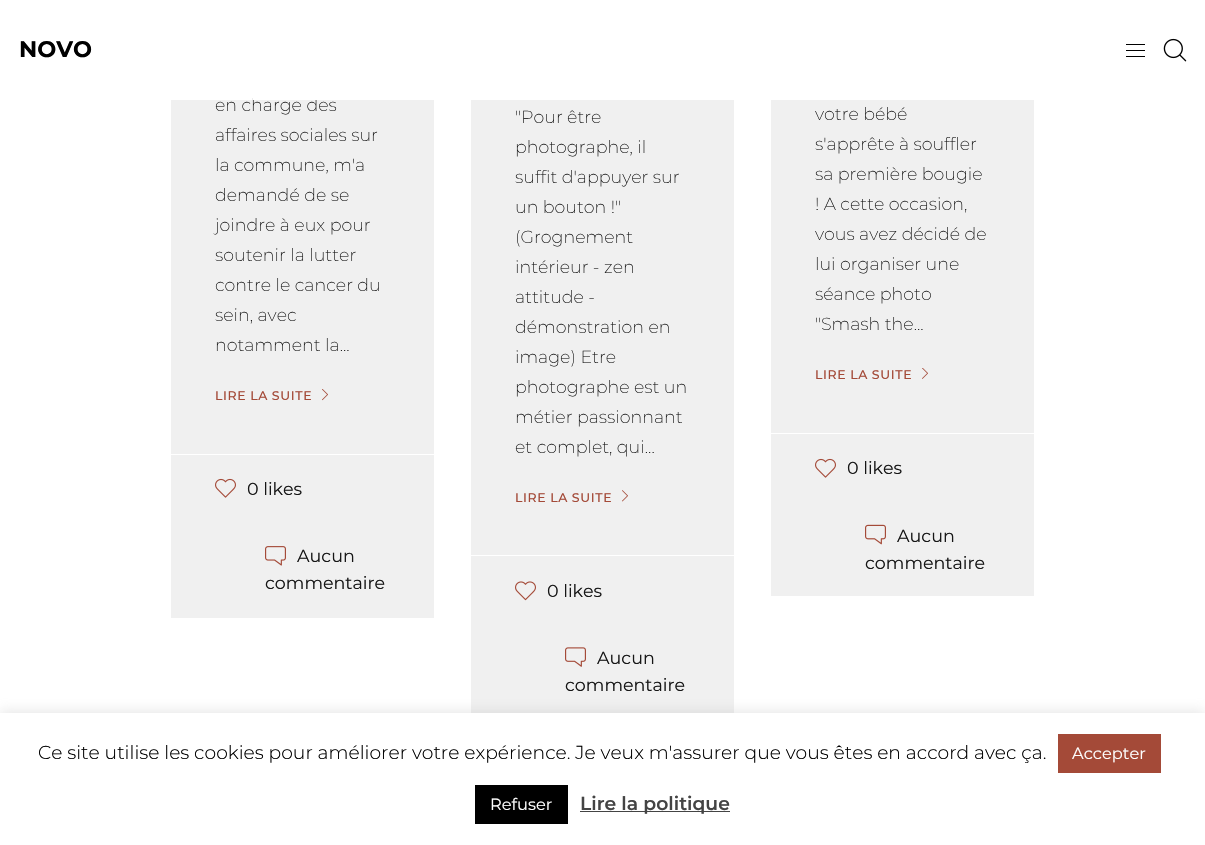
#include "include/core/SkBlurTypes.h"
#include "include/core/SkCanvas.h"
#include "include/core/SkData.h"
#include "include/core/SkFont.h"
#include "include/core/SkFontMgr.h"
#include "include/core/SkImage.h"
#include "include/core/SkMaskFilter.h"
#include "include/core/SkPaint.h"
#include "include/core/SkPathBuilder.h"
#include "include/core/SkTextBlob.h"
#include "include/effects/SkDashPathEffect.h"
#include "include/effects/SkGradientShader.h"
#include "include/utils/SkParsePath.h"

extern sk_sp<SkFontMgr> fontMgr;

void draw(SkCanvas* canvas) {
  SkPaint p;
  p.setAntiAlias(true);
  auto spacedText = [&](const char* s, float x, float y, const SkFont& font, const SkPaint& ink, float letter, float word) {
    std::vector<SkGlyphID> glyphs(font.countText(s, strlen(s), SkTextEncoding::kUTF8));
    std::vector<float> xs(glyphs.size());
    font.textToGlyphs(s, strlen(s), SkTextEncoding::kUTF8, glyphs);
    font.getXPos(glyphs, xs, x);
    float extra = 0;
    for (size_t i = 0; i < glyphs.size(); i++) {
      xs[i] += extra;
      extra += letter + word * (glyphs[i] == font.unicharToGlyph(' '));
    }
    canvas->drawTextBlob(SkTextBlob::MakeFromPosHGlyphs(glyphs, xs, y, font), 0, 0, ink);
  };
  canvas->clear(SK_ColorWHITE);
  p.setColor(SK_ColorBLACK);
  canvas->drawRect(SkRect::MakeLTRB(1126, 44, 1145, 45), p);
  canvas->drawRect(SkRect::MakeLTRB(1126, 50, 1145, 51), p);
  canvas->drawRect(SkRect::MakeLTRB(1126, 56, 1145, 57), p);
  canvas->drawImageRect(SkImages::DeferredFromEncodedData(SkData::MakeFromFileName("images/1.png")), SkRect::MakeLTRB(1163, 38, 1187, 62), SkSamplingOptions());
  p.setColor(SkColorSetRGB(240, 240, 240));
  canvas->drawRect(SkRect::MakeLTRB(171, 100, 434, 618), p);
  canvas->drawImageRect(SkImages::DeferredFromEncodedData(SkData::MakeFromFileName("images/2.png")), SkRect::MakeLTRB(322, 389, 328, 401), SkSamplingOptions());
  p.setColor(SK_ColorWHITE);
  canvas->drawRect(SkRect::MakeLTRB(171, 454, 434, 455), p);
  canvas->drawImageRect(SkImages::DeferredFromEncodedData(SkData::MakeFromFileName("images/3.png")), SkRect::MakeLTRB(215, 478, 236, 498), SkSamplingOptions());
  canvas->drawImageRect(SkImages::DeferredFromEncodedData(SkData::MakeFromFileName("images/4.png")), SkRect::MakeLTRB(265, 546, 286, 566), SkSamplingOptions());
  p.setColor(SkColorSetRGB(240, 240, 240));
  canvas->drawRect(SkRect::MakeLTRB(471, 100, 734, 713), p);
  canvas->drawImageRect(SkImages::DeferredFromEncodedData(SkData::MakeFromFileName("images/5.png")), SkRect::MakeLTRB(622, 490, 628, 502), SkSamplingOptions());
  p.setColor(SK_ColorWHITE);
  canvas->drawRect(SkRect::MakeLTRB(471, 555, 734, 556), p);
  canvas->drawImageRect(SkImages::DeferredFromEncodedData(SkData::MakeFromFileName("images/6.png")), SkRect::MakeLTRB(515, 581, 536, 601), SkSamplingOptions());
  canvas->drawImageRect(SkImages::DeferredFromEncodedData(SkData::MakeFromFileName("images/7.png")), SkRect::MakeLTRB(565, 647, 586, 667), SkSamplingOptions());
  p.setColor(SkColorSetRGB(240, 240, 240));
  canvas->drawRect(SkRect::MakeLTRB(771, 100, 1034, 596), p);
  canvas->drawImageRect(SkImages::DeferredFromEncodedData(SkData::MakeFromFileName("images/8.png")), SkRect::MakeLTRB(922, 368, 928, 379), SkSamplingOptions());
  p.setColor(SK_ColorWHITE);
  canvas->drawRect(SkRect::MakeLTRB(771, 433, 1034, 434), p);
  canvas->drawImageRect(SkImages::DeferredFromEncodedData(SkData::MakeFromFileName("images/3.png")), SkRect::MakeLTRB(815, 458, 836, 478), SkSamplingOptions());
  canvas->drawImageRect(SkImages::DeferredFromEncodedData(SkData::MakeFromFileName("images/9.png")), SkRect::MakeLTRB(865, 524, 886, 545), SkSamplingOptions());
  p.setColor(SkColorSetARGB(77, 172, 171, 171));
  p.setMaskFilter(SkMaskFilter::MakeBlur(kNormal_SkBlurStyle, 6));
  canvas->drawRect(SkRect::MakeLTRB(0, 711, 1205, 844), p);
  p.setMaskFilter(nullptr);
  p.setColor(SK_ColorWHITE);
  canvas->drawRect(SkRect::MakeLTRB(0, 713, 1205, 845), p);
  p.setColor(SkColorSetRGB(164, 74, 56));
  canvas->drawRect(SkRect::MakeLTRB(1058, 734, 1161, 773), p);
  p.setColor(SK_ColorBLACK);
  canvas->drawRect(SkRect::MakeLTRB(475, 785, 568, 824), p);
  p.setColor(SkColorSetRGB(68, 68, 68));
  canvas->drawRect(SkRect::MakeLTRB(580, 811, 730, 812), p);
  SkFont font1(fontMgr->matchFamilyStyle("Montserrat", SkFontStyle::Bold()), 22.5f);
  font1.setSubpixel(true);
  p.setColor(SK_ColorBLACK);
  canvas->drawString("NOVO", 19, 57, font1, p);
  SkFont font2(fontMgr->matchFamilyStyle("Montserrat", SkFontStyle(200, SkFontStyle::kNormal_Width, SkFontStyle::kUpright_Slant)), 17.5f);
  font2.setSubpixel(true);
  p.setColor(SkColorSetRGB(22, 22, 22));
  canvas->drawString("en charge des", 215, 111, font2, p);
  p.setColor(SK_ColorWHITE);
  canvas->drawRect(SkRect::MakeLTRB(253, 98, 317, 100), p);
  p.setColor(SkColorSetRGB(22, 22, 22));
  canvas->drawString("affaires sociales sur", 215, 141, font2, p);
  canvas->drawString("la commune, m'a", 215, 171, font2, p);
  canvas->drawString("demandé de se", 215, 201, font2, p);
  canvas->drawString("joindre à eux pour", 215, 231, font2, p);
  canvas->drawString("soutenir la lutter", 215, 261, font2, p);
  canvas->drawString("contre le cancer du", 215, 291, font2, p);
  canvas->drawString("sein, avec", 215, 321, font2, p);
  canvas->drawString("notamment la...", 215, 351, font2, p);
  SkFont font3(fontMgr->matchFamilyStyle("Montserrat", SkFontStyle(500, SkFontStyle::kNormal_Width, SkFontStyle::kUpright_Slant)), 12.5f);
  font3.setSubpixel(true);
  p.setColor(SkColorSetRGB(164, 74, 56));
  spacedText("LIRE LA SUITE", 215, 400, font3, p, 0.6f, 0);
  SkFont font4(fontMgr->matchFamilyStyle("Montserrat", SkFontStyle::Normal()), 17.5f);
  font4.setSubpixel(true);
  p.setColor(SkColorSetRGB(22, 22, 22));
  canvas->drawString("0 likes", 247, 495, font4, p);
  canvas->drawString("Aucun", 297, 562, font4, p);
  canvas->drawString("commentaire", 265, 589, font4, p);
  canvas->drawString("\"Pour être", 515, 123, font2, p);
  canvas->drawString("photographe, il", 515, 153, font2, p);
  canvas->drawString("suffit d'appuyer sur", 515, 183, font2, p);
  canvas->drawString("un bouton !\"", 515, 213, font2, p);
  canvas->drawString("(Grognement", 515, 243, font2, p);
  canvas->drawString("intérieur - zen", 515, 273, font2, p);
  canvas->drawString("attitude -", 515, 303, font2, p);
  canvas->drawString("démonstration en", 515, 333, font2, p);
  canvas->drawString("image) Etre", 515, 363, font2, p);
  canvas->drawString("photographe est un", 515, 393, font2, p);
  canvas->drawString("métier passionnant", 515, 423, font2, p);
  canvas->drawString("et complet, qui...", 515, 453, font2, p);
  p.setColor(SkColorSetRGB(164, 74, 56));
  spacedText("LIRE LA SUITE", 515, 502, font3, p, 0.6f, 0);
  p.setColor(SkColorSetRGB(22, 22, 22));
  canvas->drawString("0 likes", 547, 597, font4, p);
  canvas->drawString("Aucun", 597, 664, font4, p);
  canvas->drawString("commentaire", 565, 691, font4, p);
  canvas->drawString("votre bébé", 815, 120, font2, p);
  canvas->drawString("s'apprête à souffler", 815, 150, font2, p);
  canvas->drawString("sa première bougie", 815, 180, font2, p);
  canvas->drawString("! A cette occasion,", 815, 210, font2, p);
  canvas->drawString("vous avez décidé de", 815, 240, font2, p);
  canvas->drawString("lui organiser une", 815, 270, font2, p);
  canvas->drawString("séance photo", 815, 300, font2, p);
  canvas->drawString("\"Smash the...", 815, 330, font2, p);
  p.setColor(SkColorSetRGB(164, 74, 56));
  spacedText("LIRE LA SUITE", 815, 379, font3, p, 0.6f, 0);
  p.setColor(SkColorSetRGB(22, 22, 22));
  canvas->drawString("0 likes", 847, 474, font4, p);
  canvas->drawString("Aucun", 897, 542, font4, p);
  canvas->drawString("commentaire", 865, 569, font4, p);
  SkFont font5(fontMgr->matchFamilyStyle("Montserrat", SkFontStyle(300, SkFontStyle::kNormal_Width, SkFontStyle::kUpright_Slant)), 18.75f);
  font5.setSubpixel(true);
  p.setColor(SK_ColorBLACK);
  canvas->drawString("Ce site utilise les cookies pour améliorer votre expérience. Je veux m'assurer que vous êtes en accord avec ça.", 38, 759, font5, p);
  SkFont font6(fontMgr->matchFamilyStyle("Montserrat", SkFontStyle::Normal()), 16.25f);
  font6.setSubpixel(true);
  p.setColor(SK_ColorWHITE);
  canvas->drawString("Accepter", 1072, 759, font6, p);
  canvas->drawString("Refuser", 490, 810, font6, p);
  SkFont font7(fontMgr->matchFamilyStyle("Montserrat", SkFontStyle(600, SkFontStyle::kNormal_Width, SkFontStyle::kUpright_Slant)), 18.75f);
  font7.setSubpixel(true);
  p.setColor(SkColorSetRGB(68, 68, 68));
  canvas->drawString("Lire la politique", 580, 810, font7, p);
}
